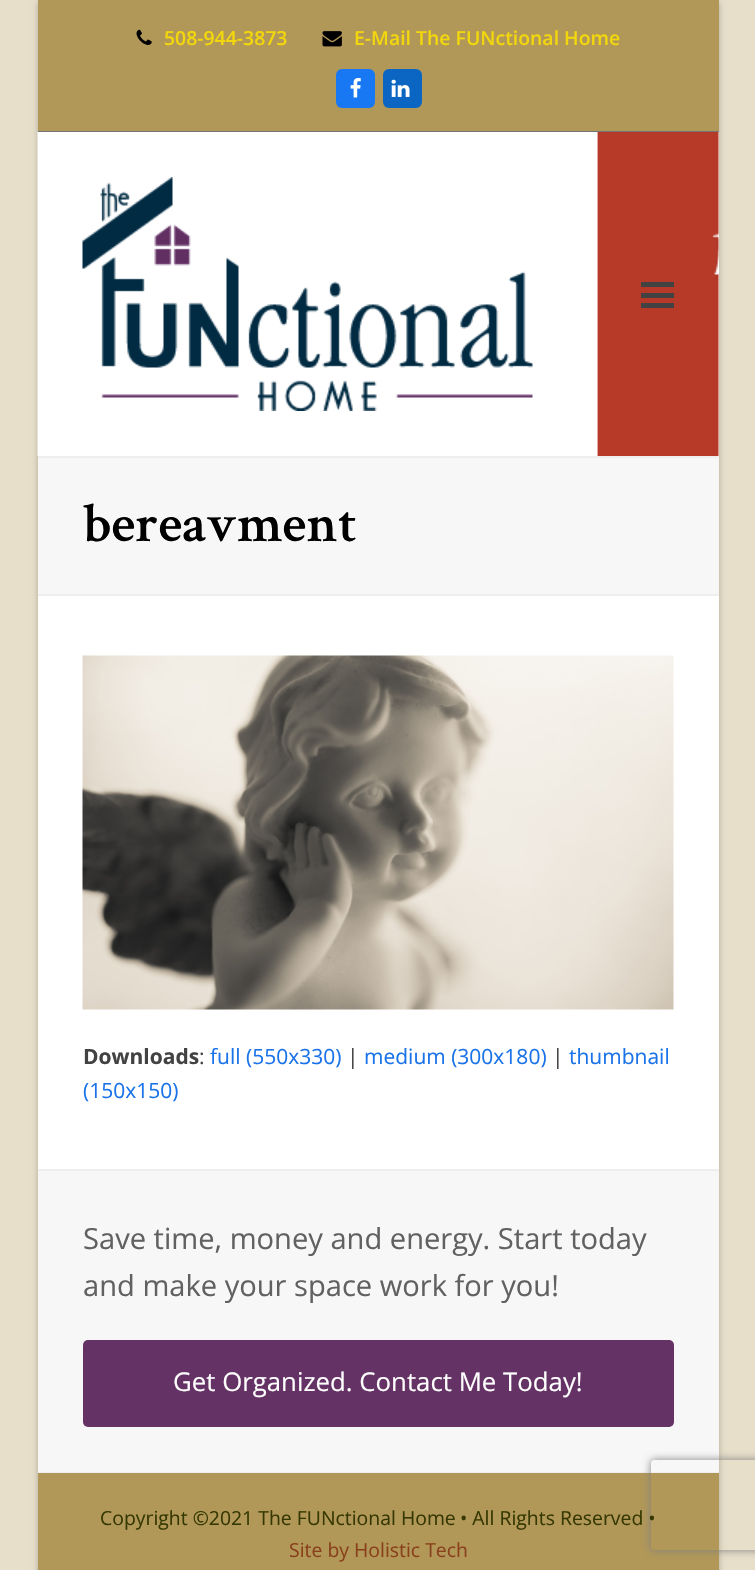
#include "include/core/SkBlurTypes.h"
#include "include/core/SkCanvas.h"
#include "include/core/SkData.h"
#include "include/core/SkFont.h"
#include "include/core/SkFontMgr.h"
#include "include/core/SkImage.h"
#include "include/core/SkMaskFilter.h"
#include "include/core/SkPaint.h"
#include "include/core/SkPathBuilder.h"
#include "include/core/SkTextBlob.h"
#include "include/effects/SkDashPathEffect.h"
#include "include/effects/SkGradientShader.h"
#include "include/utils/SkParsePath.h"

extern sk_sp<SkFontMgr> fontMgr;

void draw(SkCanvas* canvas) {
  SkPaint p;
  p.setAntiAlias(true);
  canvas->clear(SkColorSetRGB(231, 223, 202));
  p.setColor(SkColorSetARGB(64, 0, 0, 0));
  p.setMaskFilter(SkMaskFilter::MakeBlur(kNormal_SkBlurStyle, 3));
  canvas->drawRect(SkRect::MakeLTRB(38, 2, 719, 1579), p);
  p.setMaskFilter(nullptr);
  p.setColor(SK_ColorWHITE);
  canvas->drawRect(SkRect::MakeLTRB(38, 596, 719, 1169), p);
  p.setColor(SkColorSetRGB(177, 151, 88));
  canvas->drawRect(SkRect::MakeLTRB(38, 0, 719, 131), p);
  p.setColor(SkColorSetRGB(117, 117, 117));
  canvas->drawRect(SkRect::MakeLTRB(38, 131, 719, 132), p);
  canvas->drawImageRect(SkImages::DeferredFromEncodedData(SkData::MakeFromFileName("images/1.png")), SkRect::MakeLTRB(136, 29, 152, 45), SkSamplingOptions());
  canvas->drawImageRect(SkImages::DeferredFromEncodedData(SkData::MakeFromFileName("images/2.png")), SkRect::MakeLTRB(322, 31, 342, 47), SkSamplingOptions());
  p.setColor(SkColorSetRGB(24, 119, 242));
  canvas->drawRoundRect(SkRect::MakeLTRB(336, 69, 375, 108), 6, 6, p);
  canvas->drawImageRect(SkImages::DeferredFromEncodedData(SkData::MakeFromFileName("images/3.png")), SkRect::MakeLTRB(350, 78, 361, 98), SkSamplingOptions());
  p.setColor(SkColorSetRGB(10, 102, 194));
  canvas->drawRoundRect(SkRect::MakeLTRB(383, 69, 422, 108), 6, 6, p);
  canvas->drawImageRect(SkImages::DeferredFromEncodedData(SkData::MakeFromFileName("images/4.png")), SkRect::MakeLTRB(391, 79, 410, 97), SkSamplingOptions());
  p.setColor(SK_ColorWHITE);
  canvas->drawRect(SkRect::MakeLTRB(718, 132, 719, 456), p);
  canvas->drawImageRect(SkImages::DeferredFromEncodedData(SkData::MakeFromFileName("images/5.png")), SkRect::MakeLTRB(37, 132, 719, 456), SkSamplingOptions());
  canvas->drawImageRect(SkImages::DeferredFromEncodedData(SkData::MakeFromFileName("images/6.png")), SkRect::MakeLTRB(82, 177, 533, 411), SkSamplingOptions());
  p.setColor(SkColorSetRGB(66, 66, 66));
  canvas->drawRect(SkRect::MakeLTRB(641, 293, 674, 298), p);
  canvas->drawRect(SkRect::MakeLTRB(641, 282, 674, 287), p);
  canvas->drawRect(SkRect::MakeLTRB(641, 303, 674, 308), p);
  p.setColor(SkColorSetRGB(247, 247, 247));
  canvas->drawRect(SkRect::MakeLTRB(38, 458, 719, 594), p);
  p.setColor(SkColorSetRGB(238, 238, 238));
  canvas->drawRect(SkRect::MakeLTRB(38, 456, 719, 458), p);
  canvas->drawRect(SkRect::MakeLTRB(38, 594, 719, 596), p);
  canvas->drawImageRect(SkImages::DeferredFromEncodedData(SkData::MakeFromFileName("images/7.png")), SkRect::MakeLTRB(82, 655, 674, 1010), SkSamplingOptions());
  p.setColor(SkColorSetRGB(247, 247, 247));
  canvas->drawRect(SkRect::MakeLTRB(38, 1171, 719, 1472), p);
  p.setColor(SkColorSetRGB(238, 238, 238));
  canvas->drawRect(SkRect::MakeLTRB(38, 1169, 719, 1171), p);
  canvas->drawRect(SkRect::MakeLTRB(38, 1472, 719, 1473), p);
  p.setColor(SkColorSetRGB(100, 50, 100));
  canvas->drawRoundRect(SkRect::MakeLTRB(83, 1340, 674, 1427), 5, 5, p);
  p.setColor(SkColorSetRGB(177, 151, 88));
  canvas->drawRect(SkRect::MakeLTRB(38, 1473, 719, 1570), p);
  canvas->save();
  canvas->clipPath(SkPathBuilder(SkPathFillType::kEvenOdd).moveTo(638, 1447).lineTo(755, 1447).lineTo(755, 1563).lineTo(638, 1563).close().moveTo(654, 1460).lineTo(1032, 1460).cubicTo(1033.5f, 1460, 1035, 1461.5f, 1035, 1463).lineTo(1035, 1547).cubicTo(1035, 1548.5f, 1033.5f, 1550, 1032, 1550).lineTo(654, 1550).cubicTo(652.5f, 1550, 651, 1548.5f, 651, 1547).lineTo(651, 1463).cubicTo(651, 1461.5f, 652.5f, 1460, 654, 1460).close().detach(), true);
  p.setColor(SkColorSetRGB(128, 128, 128));
  p.setMaskFilter(SkMaskFilter::MakeBlur(kNormal_SkBlurStyle, 4));
  canvas->drawRoundRect(SkRect::MakeLTRB(651, 1460, 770, 1550), 3, 3, p);
  p.setMaskFilter(nullptr);
  canvas->restore();
  SkFont font1(fontMgr->matchFamilyStyle("Open Sans", SkFontStyle(600, SkFontStyle::kNormal_Width, SkFontStyle::kUpright_Slant)), 19.4f);
  font1.setSubpixel(true);
  p.setColor(SkColorSetRGB(242, 215, 12));
  canvas->drawString("508-944-3873", 164, 45, font1, p);
  canvas->drawString("E-Mail The FUNctional Home", 354, 45, font1, p);
  SkFont font2(fontMgr->matchFamilyStyle("Crimson Text", SkFontStyle(600, SkFontStyle::kNormal_Width, SkFontStyle::kUpright_Slant)), 55.5f);
  font2.setSubpixel(true);
  p.setColor(SK_ColorBLACK);
  canvas->drawString("bereavment", 83, 541, font2, p);
  SkFont font3(fontMgr->matchFamilyStyle("Open Sans", SkFontStyle::Bold()), 21);
  font3.setSubpixel(true);
  p.setColor(SkColorSetRGB(66, 66, 66));
  canvas->drawString("Downloads", 83, 1064, font3, p);
  SkFont font4(fontMgr->matchFamilyStyle("Open Sans", SkFontStyle::Normal()), 21);
  font4.setSubpixel(true);
  canvas->drawString(":", 199, 1064, font4, p);
  p.setColor(SkColorSetRGB(26, 115, 232));
  canvas->drawString("full (550x330)", 210, 1064, font4, p);
  p.setColor(SkColorSetRGB(66, 66, 66));
  canvas->drawString("|", 347, 1064, font4, p);
  p.setColor(SkColorSetRGB(26, 115, 232));
  canvas->drawString("medium (300x180)", 364, 1064, font4, p);
  p.setColor(SkColorSetRGB(66, 66, 66));
  canvas->drawString("|", 552, 1064, font4, p);
  p.setColor(SkColorSetRGB(26, 115, 232));
  canvas->drawString("thumbnail", 569, 1064, font4, p);
  canvas->drawString("(150x150)", 83, 1098, font4, p);
  SkFont font5(fontMgr->matchFamilyStyle("Open Sans", SkFontStyle::Normal()), 29.1f);
  font5.setSubpixel(true);
  p.setColor(SkColorSetRGB(97, 97, 97));
  canvas->drawString("Save time, money and energy. Start today", 83, 1249, font5, p);
  canvas->drawString("and make your space work for you!", 83, 1296, font5, p);
  SkFont font6(fontMgr->matchFamilyStyle("Open Sans", SkFontStyle::Normal()), 25.8f);
  font6.setSubpixel(true);
  p.setColor(SK_ColorWHITE);
  canvas->drawString("Get Organized. Contact Me Today!", 173, 1391, font6, p);
  SkFont font7(fontMgr->matchFamilyStyle("Open Sans", SkFontStyle::Normal()), 19.4f);
  font7.setSubpixel(true);
  p.setColor(SkColorSetRGB(53, 56, 0));
  canvas->drawString("Copyright ©2021 The FUNctional Home", 100, 1525, font7, p);
  canvas->drawString("• All Rights Reserved •", 460, 1525, font7, p);
  p.setColor(SkColorSetRGB(137, 64, 27));
  canvas->drawString("Site by Holistic Tech", 289, 1557, font7, p);
}
